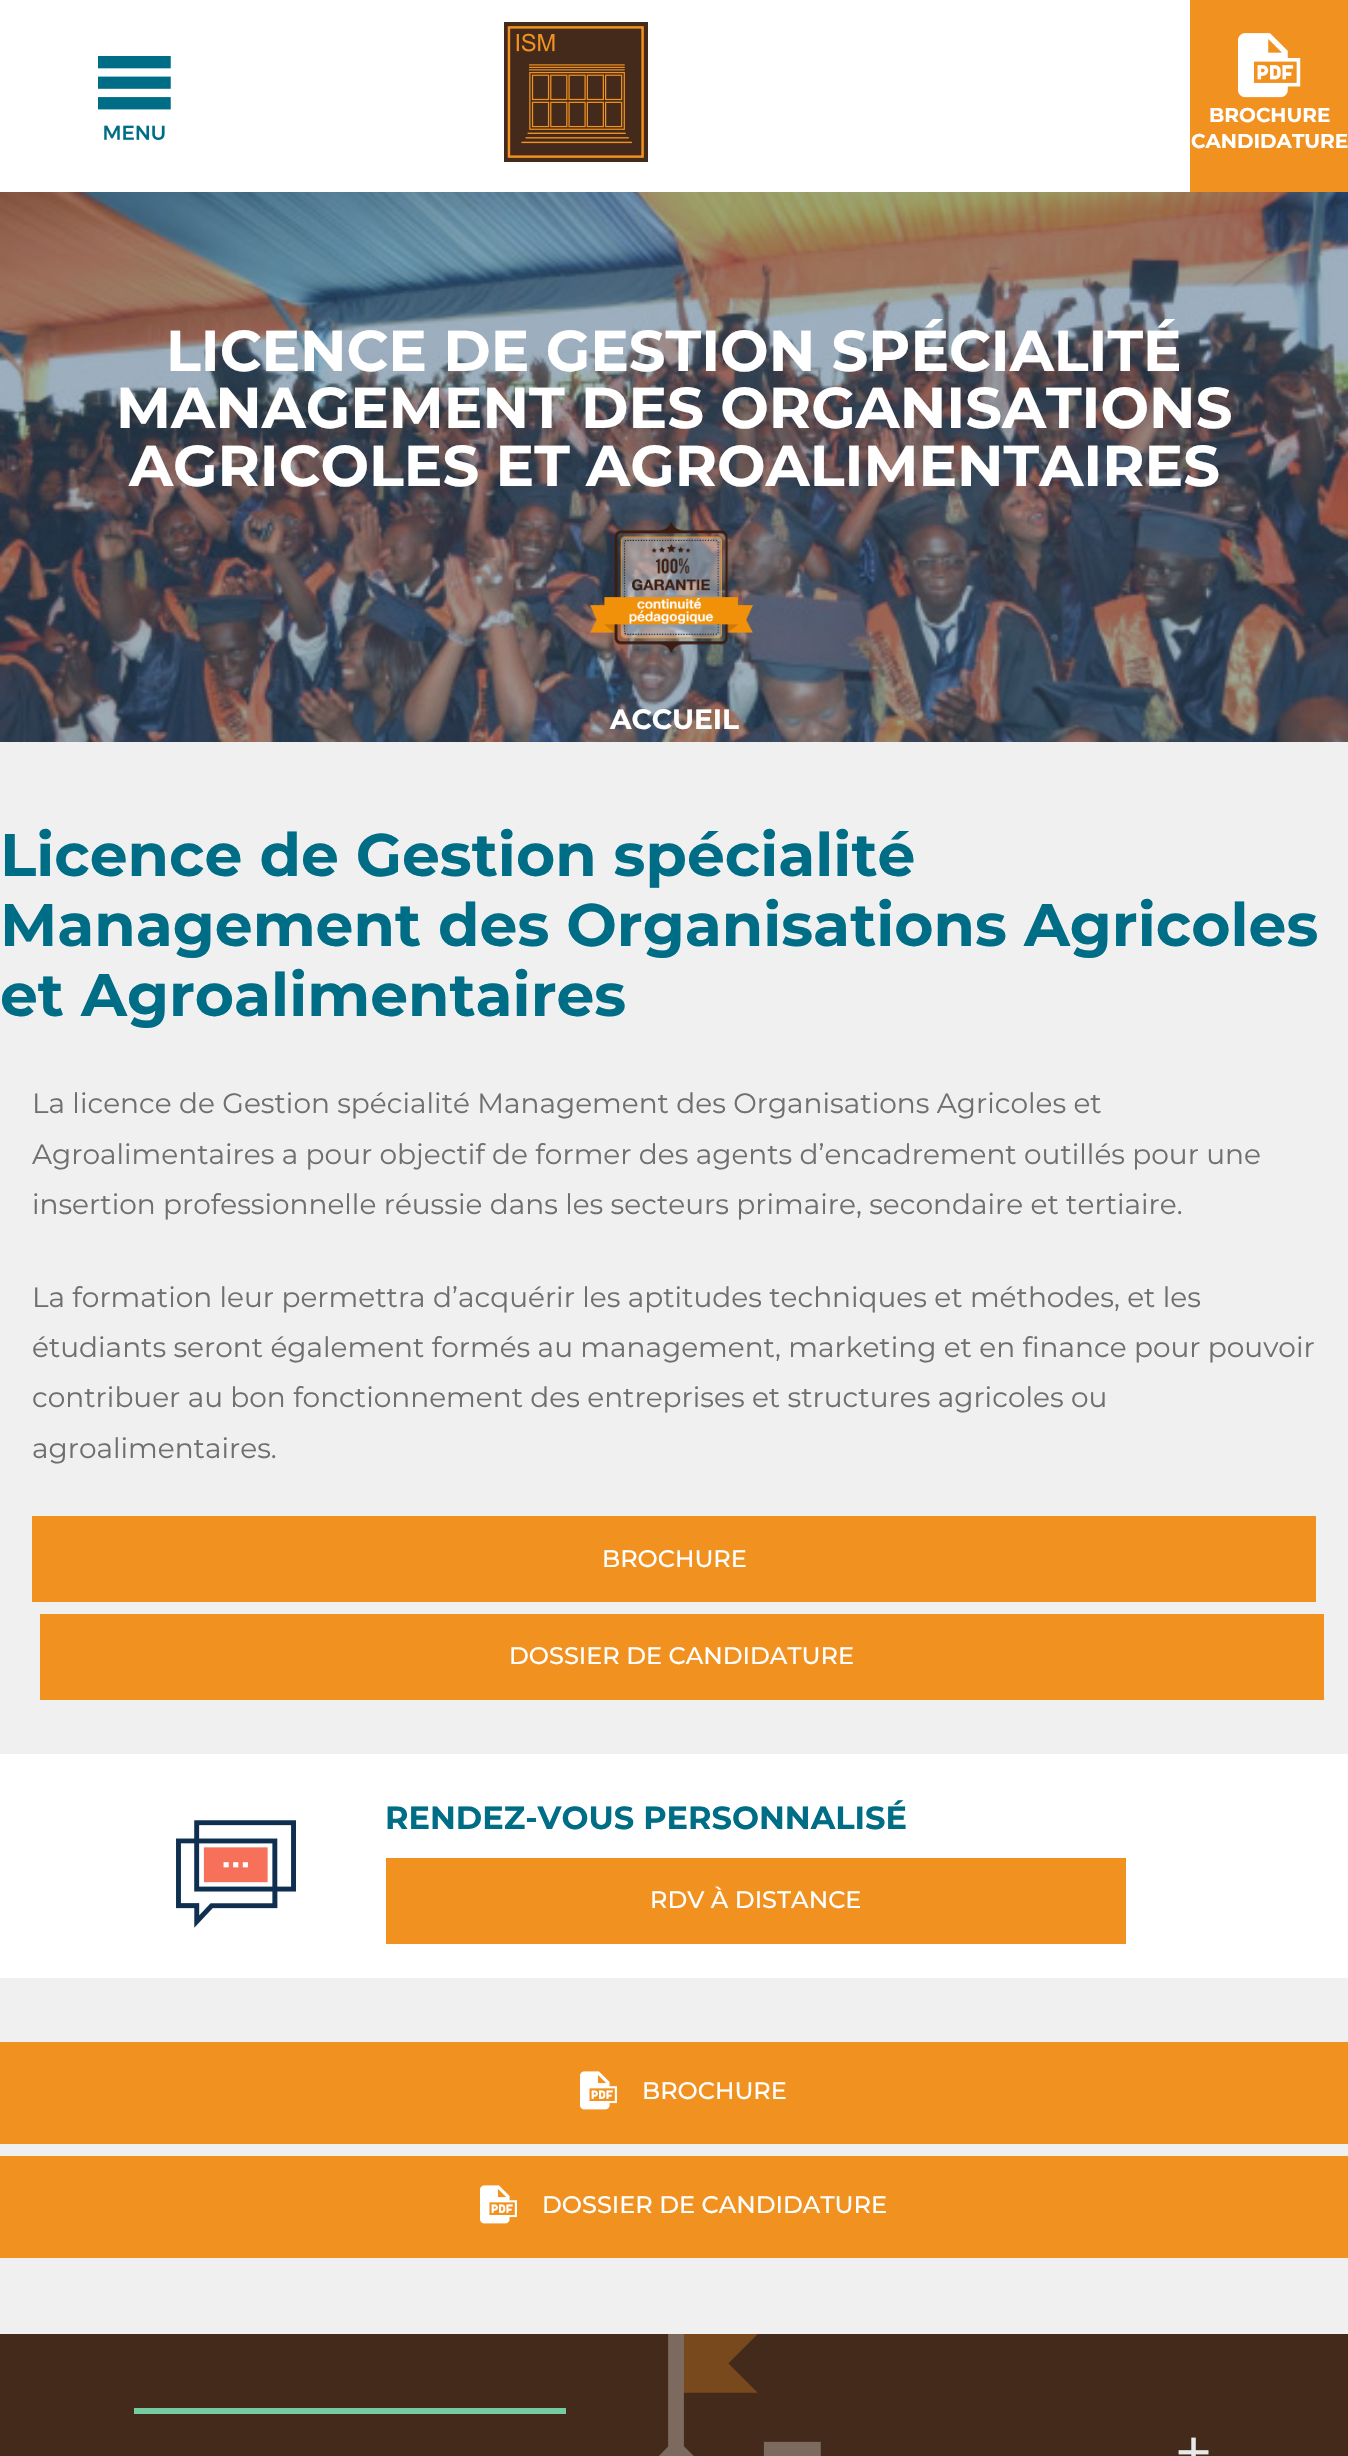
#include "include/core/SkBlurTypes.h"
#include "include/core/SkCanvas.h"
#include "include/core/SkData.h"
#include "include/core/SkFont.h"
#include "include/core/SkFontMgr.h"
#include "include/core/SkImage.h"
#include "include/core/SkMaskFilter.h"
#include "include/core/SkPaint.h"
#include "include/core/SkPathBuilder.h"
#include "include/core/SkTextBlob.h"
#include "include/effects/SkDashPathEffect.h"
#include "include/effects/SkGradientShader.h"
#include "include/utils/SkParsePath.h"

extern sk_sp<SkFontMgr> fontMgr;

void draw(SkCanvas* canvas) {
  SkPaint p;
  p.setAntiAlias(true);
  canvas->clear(SK_ColorWHITE);
  canvas->drawImageRect(SkImages::DeferredFromEncodedData(SkData::MakeFromFileName("images/1.png")), SkRect::MakeLTRB(98, 56, 171, 140), SkSamplingOptions());
  canvas->drawImageRect(SkImages::DeferredFromEncodedData(SkData::MakeFromFileName("images/2.png")), SkRect::MakeLTRB(504, 22, 648, 162), SkSamplingOptions());
  p.setColor(SkColorSetRGB(241, 145, 32));
  canvas->drawRect(SkRect::MakeLTRB(1190, 0, 1348, 192), p);
  canvas->drawImageRect(SkImages::DeferredFromEncodedData(SkData::MakeFromFileName("images/3.png")), SkRect::MakeLTRB(1238, 33, 1301, 98), SkSamplingOptions());
  canvas->drawImageRect(SkImages::DeferredFromEncodedData(SkData::MakeFromFileName("images/4.png")), SkRect::MakeLTRB(0, 192, 1348, 742), SkSamplingOptions());
  canvas->drawImageRect(SkImages::DeferredFromEncodedData(SkData::MakeFromFileName("images/5.png")), SkRect::MakeLTRB(589, 521, 753, 653), SkSamplingOptions());
  p.setColor(SkColorSetRGB(240, 240, 240));
  canvas->drawRect(SkRect::MakeLTRB(0, 742, 1348, 2334), p);
  p.setColor(SkColorSetRGB(241, 145, 32));
  canvas->drawRect(SkRect::MakeLTRB(32, 1516, 1316, 1602), p);
  canvas->drawRect(SkRect::MakeLTRB(40, 1614, 1324, 1700), p);
  p.setColor(SK_ColorWHITE);
  canvas->drawRect(SkRect::MakeLTRB(0, 1754, 1348, 1978), p);
  canvas->drawImageRect(SkImages::DeferredFromEncodedData(SkData::MakeFromFileName("images/6.png")), SkRect::MakeLTRB(176, 1820, 296, 1928), SkSamplingOptions());
  p.setColor(SkColorSetRGB(241, 145, 32));
  canvas->drawRect(SkRect::MakeLTRB(386, 1858, 1126, 1944), p);
  canvas->drawRect(SkRect::MakeLTRB(0, 2042, 1348, 2144), p);
  canvas->drawImageRect(SkImages::DeferredFromEncodedData(SkData::MakeFromFileName("images/7.png")), SkRect::MakeLTRB(580, 2071, 617, 2110), SkSamplingOptions());
  canvas->drawRect(SkRect::MakeLTRB(0, 2156, 1348, 2258), p);
  canvas->drawImageRect(SkImages::DeferredFromEncodedData(SkData::MakeFromFileName("images/7.png")), SkRect::MakeLTRB(480, 2185, 517, 2224), SkSamplingOptions());
  p.setColor(SkColorSetRGB(68, 42, 27));
  canvas->drawRect(SkRect::MakeLTRB(0, 2334, 1348, 2456), p);
  canvas->drawImageRect(SkImages::DeferredFromEncodedData(SkData::MakeFromFileName("images/8.png")), SkRect::MakeLTRB(659, 2334, 821, 2456), SkSamplingOptions());
  p.setColor(SkColorSetRGB(118, 204, 160));
  canvas->drawRect(SkRect::MakeLTRB(134, 2408, 566, 2414), p);
  SkFont font1(fontMgr->matchFamilyStyle("Montserrat", SkFontStyle::Bold()), 20);
  font1.setSubpixel(true);
  p.setColor(SK_ColorWHITE);
  canvas->drawString("BROCHURE", 1209, 122, font1, p);
  canvas->drawString("CANDIDATURE", 1191, 148, font1, p);
  SkFont font2(fontMgr->matchFamilyStyle("Montserrat", SkFontStyle::Bold()), 57.6f);
  font2.setSubpixel(true);
  canvas->drawString("LICENCE DE GESTION SPÉCIALITÉ", 166, 371, font2, p);
  canvas->drawString("MANAGEMENT DES ORGANISATIONS", 116, 428, font2, p);
  canvas->drawString("AGRICOLES ET AGROALIMENTAIRES", 129, 486, font2, p);
  SkFont font3(fontMgr->matchFamilyStyle("Montserrat", SkFontStyle::Bold()), 28);
  font3.setSubpixel(true);
  canvas->drawString("ACCUEIL", 610, 729, font3, p);
  SkFont font4(fontMgr->matchFamilyStyle("Montserrat", SkFontStyle::Bold()), 60);
  font4.setSubpixel(true);
  p.setColor(SkColorSetRGB(0, 109, 134));
  canvas->drawString("Licence de Gestion spécialité", 0, 876, font4, p);
  canvas->drawString("Management des Organisations Agricoles", 0, 946, font4, p);
  canvas->drawString("et Agroalimentaires", 0, 1016, font4, p);
  SkFont font5(fontMgr->matchFamilyStyle("Montserrat", SkFontStyle::Normal()), 28);
  font5.setSubpixel(true);
  p.setColor(SkColorSetRGB(111, 111, 111));
  canvas->drawString("La licence de Gestion spécialité Management des Organisations Agricoles et", 32, 1113, font5, p);
  canvas->drawString("Agroalimentaires a pour objectif de former des agents d’encadrement outillés pour une", 32, 1164, font5, p);
  canvas->drawString("insertion professionnelle réussie dans les secteurs primaire, secondaire et tertiaire.", 32, 1214, font5, p);
  canvas->drawString("La formation leur permettra d’acquérir les aptitudes techniques et méthodes, et les", 32, 1307, font5, p);
  canvas->drawString("étudiants seront également formés au management, marketing et en finance pour pouvoir", 32, 1357, font5, p);
  canvas->drawString("contribuer au bon fonctionnement des entreprises et structures agricoles ou", 32, 1407, font5, p);
  canvas->drawString("agroalimentaires.", 32, 1458, font5, p);
  SkFont font6(fontMgr->matchFamilyStyle("Montserrat", SkFontStyle(500, SkFontStyle::kNormal_Width, SkFontStyle::kUpright_Slant)), 24);
  font6.setSubpixel(true);
  p.setColor(SK_ColorWHITE);
  canvas->drawString("BROCHURE", 602, 1567, font6, p);
  canvas->drawString("DOSSIER DE CANDIDATURE", 509, 1664, font6, p);
  SkFont font7(fontMgr->matchFamilyStyle("Montserrat", SkFontStyle::Bold()), 32);
  font7.setSubpixel(true);
  p.setColor(SkColorSetRGB(0, 109, 134));
  canvas->drawString("RENDEZ-VOUS PERSONNALISÉ", 385, 1829, font7, p);
  p.setColor(SK_ColorWHITE);
  canvas->drawString("RDV À DISTANCE", 650, 1908, font6, p);
  canvas->drawString("BROCHURE", 642, 2099, font6, p);
  canvas->drawString("DOSSIER DE CANDIDATURE", 542, 2213, font6, p);
  SkFont font8(fontMgr->matchFamilyStyle("Montserrat", SkFontStyle::Normal()), 68);
  font8.setSubpixel(true);
  p.setColor(SkColorSetRGB(233, 233, 233));
  canvas->drawString("+", 1174, 2476, font8, p);
}
